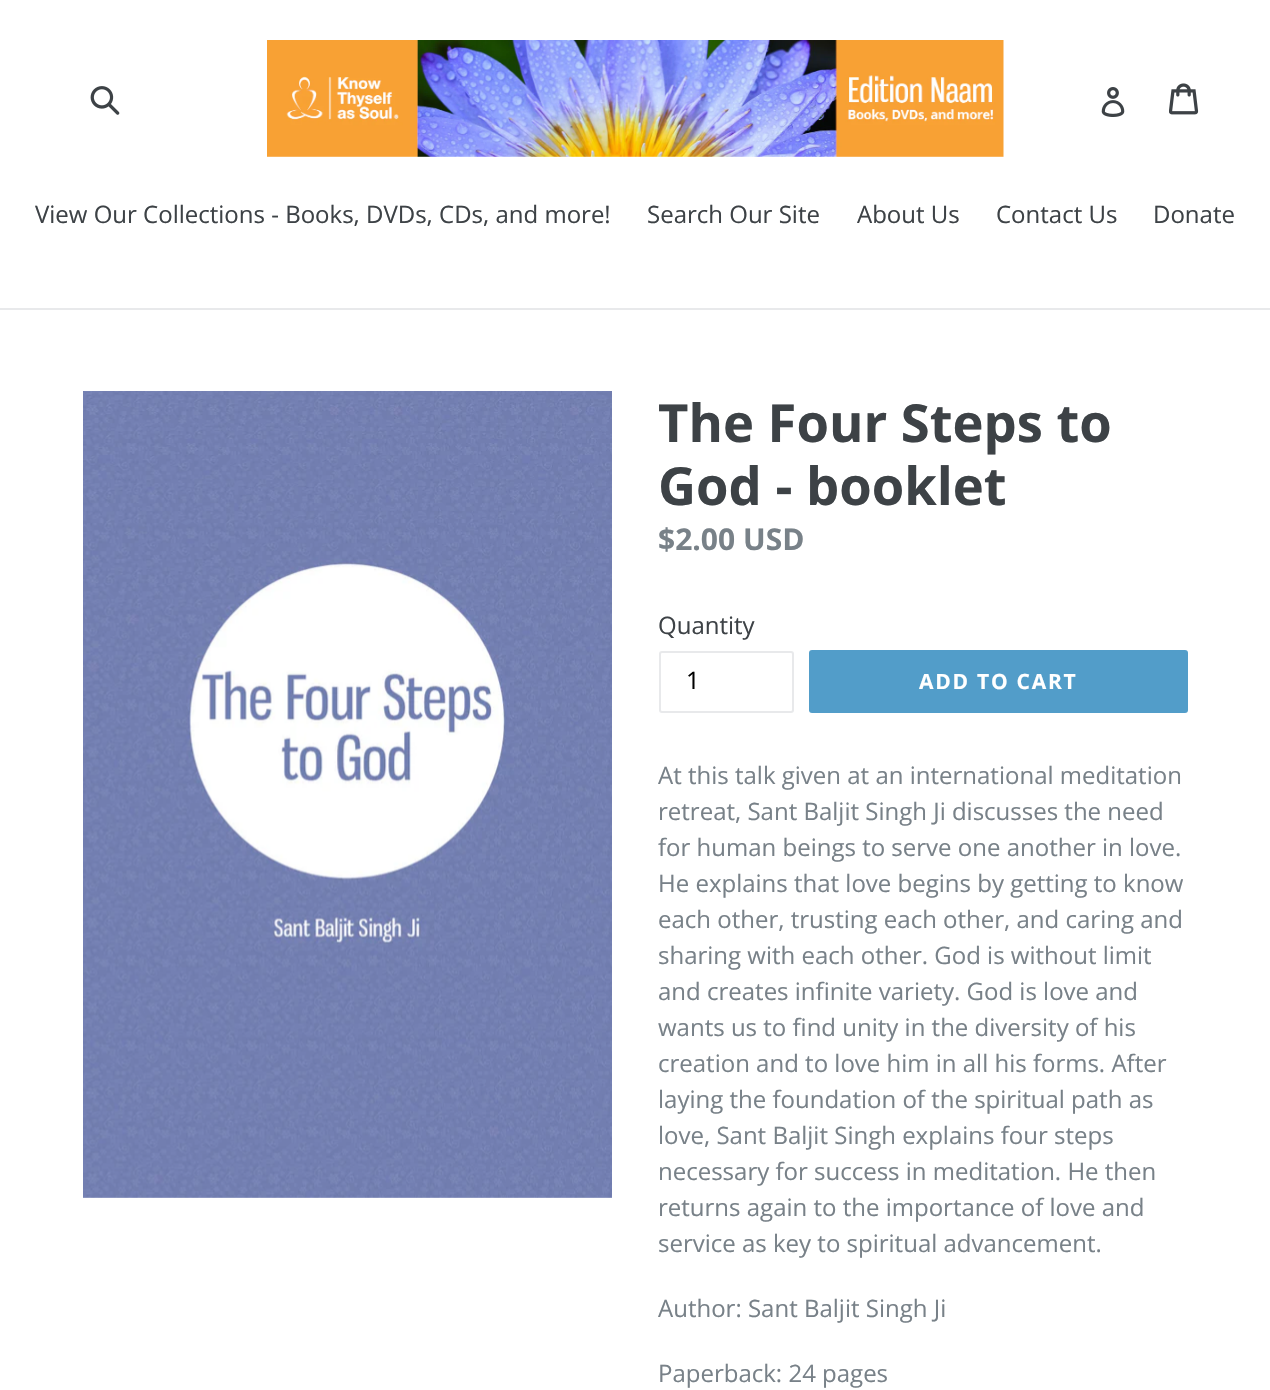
#include "include/core/SkBlurTypes.h"
#include "include/core/SkCanvas.h"
#include "include/core/SkData.h"
#include "include/core/SkFont.h"
#include "include/core/SkFontMgr.h"
#include "include/core/SkImage.h"
#include "include/core/SkMaskFilter.h"
#include "include/core/SkPaint.h"
#include "include/core/SkPathBuilder.h"
#include "include/core/SkTextBlob.h"
#include "include/effects/SkDashPathEffect.h"
#include "include/effects/SkGradientShader.h"
#include "include/utils/SkParsePath.h"

extern sk_sp<SkFontMgr> fontMgr;

void draw(SkCanvas* canvas) {
  SkPaint p;
  p.setAntiAlias(true);
  auto spacedText = [&](const char* s, float x, float y, const SkFont& font, const SkPaint& ink, float letter, float word) {
    std::vector<SkGlyphID> glyphs(font.countText(s, strlen(s), SkTextEncoding::kUTF8));
    std::vector<float> xs(glyphs.size());
    font.textToGlyphs(s, strlen(s), SkTextEncoding::kUTF8, glyphs);
    font.getXPos(glyphs, xs, x);
    float extra = 0;
    for (size_t i = 0; i < glyphs.size(); i++) {
      xs[i] += extra;
      extra += letter + word * (glyphs[i] == font.unicharToGlyph(' '));
    }
    canvas->drawTextBlob(SkTextBlob::MakeFromPosHGlyphs(glyphs, xs, y, font), 0, 0, ink);
  };
  canvas->clear(SK_ColorWHITE);
  canvas->drawImageRect(SkImages::DeferredFromEncodedData(SkData::MakeFromFileName("images/1.png")), SkRect::MakeLTRB(90, 86, 120, 115), SkSamplingOptions());
  canvas->drawImageRect(SkImages::DeferredFromEncodedData(SkData::MakeFromFileName("images/2.png")), SkRect::MakeLTRB(267, 40, 1004, 157), SkSamplingOptions());
  canvas->drawImageRect(SkImages::DeferredFromEncodedData(SkData::MakeFromFileName("images/3.png")), SkRect::MakeLTRB(1101, 87, 1125, 117), SkSamplingOptions());
  canvas->drawImageRect(SkImages::DeferredFromEncodedData(SkData::MakeFromFileName("images/4.png")), SkRect::MakeLTRB(1169, 83, 1199, 115), SkSamplingOptions());
  p.setColor(SkColorSetRGB(232, 233, 235));
  canvas->drawRect(SkRect::MakeLTRB(0, 308, 1270, 310), p);
  canvas->drawImageRect(SkImages::DeferredFromEncodedData(SkData::MakeFromFileName("images/5.png")), SkRect::MakeLTRB(83, 391, 612, 1198), SkSamplingOptions());
  p.setStyle(SkPaint::kStroke_Style);
  p.setStrokeWidth(2);
  canvas->drawRoundRect(SkRect::MakeLTRB(660, 652, 793, 712), 2, 2, p);
  p.setStyle(SkPaint::kFill_Style);
  p.setColor(SkColorSetRGB(82, 157, 201));
  canvas->drawRoundRect(SkRect::MakeLTRB(809, 650, 1188, 713), 3, 3, p);
  SkFont font1(fontMgr->matchFamilyStyle("Open Sans", SkFontStyle::Normal()), 24);
  font1.setSubpixel(true);
  p.setColor(SkColorSetRGB(61, 66, 70));
  canvas->drawString("View Our Collections - Books, DVDs, CDs, and more!", 35, 223, font1, p);
  canvas->drawString("Search Our Site", 647, 223, font1, p);
  canvas->drawString("About Us", 857, 223, font1, p);
  canvas->drawString("Contact Us", 996, 223, font1, p);
  canvas->drawString("Donate", 1153, 223, font1, p);
  SkFont font2(fontMgr->matchFamilyStyle("Open Sans", SkFontStyle::Bold()), 52.5f);
  font2.setSubpixel(true);
  canvas->drawString("The Four Steps to", 658, 442, font2, p);
  canvas->drawString("God - booklet", 658, 505, font2, p);
  SkFont font3(fontMgr->matchFamilyStyle("Open Sans", SkFontStyle::Bold()), 30);
  font3.setSubpixel(true);
  p.setColor(SkColorSetRGB(120, 129, 136));
  canvas->drawString("$2.00 USD", 658, 550, font3, p);
  p.setColor(SkColorSetRGB(61, 66, 70));
  canvas->drawString("Quantity", 658, 634, font1, p);
  p.setColor(SK_ColorBLACK);
  canvas->drawString("1", 686, 689, font1, p);
  SkFont font4(fontMgr->matchFamilyStyle("Open Sans", SkFontStyle::Bold()), 21);
  font4.setSubpixel(true);
  p.setColor(SK_ColorWHITE);
  spacedText("ADD TO CART", 919, 689, font4, p, 1.75f, 0);
  p.setColor(SkColorSetRGB(120, 129, 136));
  canvas->drawString("At this talk given at an international meditation", 658, 784, font1, p);
  canvas->drawString("retreat, Sant Baljit Singh Ji discusses the need", 658, 820, font1, p);
  canvas->drawString("for human beings to serve one another in love.", 658, 856, font1, p);
  canvas->drawString("He explains that love begins by getting to know", 658, 892, font1, p);
  canvas->drawString("each other, trusting each other, and caring and", 658, 928, font1, p);
  canvas->drawString("sharing with each other. God is without limit", 658, 964, font1, p);
  canvas->drawString("and creates infinite variety. God is love and", 658, 1000, font1, p);
  canvas->drawString("wants us to find unity in the diversity of his", 658, 1036, font1, p);
  canvas->drawString("creation and to love him in all his forms. After", 658, 1072, font1, p);
  canvas->drawString("laying the foundation of the spiritual path as", 658, 1108, font1, p);
  canvas->drawString("love, Sant Baljit Singh explains four steps", 658, 1144, font1, p);
  canvas->drawString("necessary for success in meditation. He then", 658, 1180, font1, p);
  canvas->drawString("returns again to the importance of love and", 658, 1216, font1, p);
  canvas->drawString("service as key to spiritual advancement.", 658, 1252, font1, p);
  canvas->drawString("Author: Sant Baljit Singh Ji", 658, 1317, font1, p);
  canvas->drawString("Paperback: 24 pages", 658, 1382, font1, p);
}
